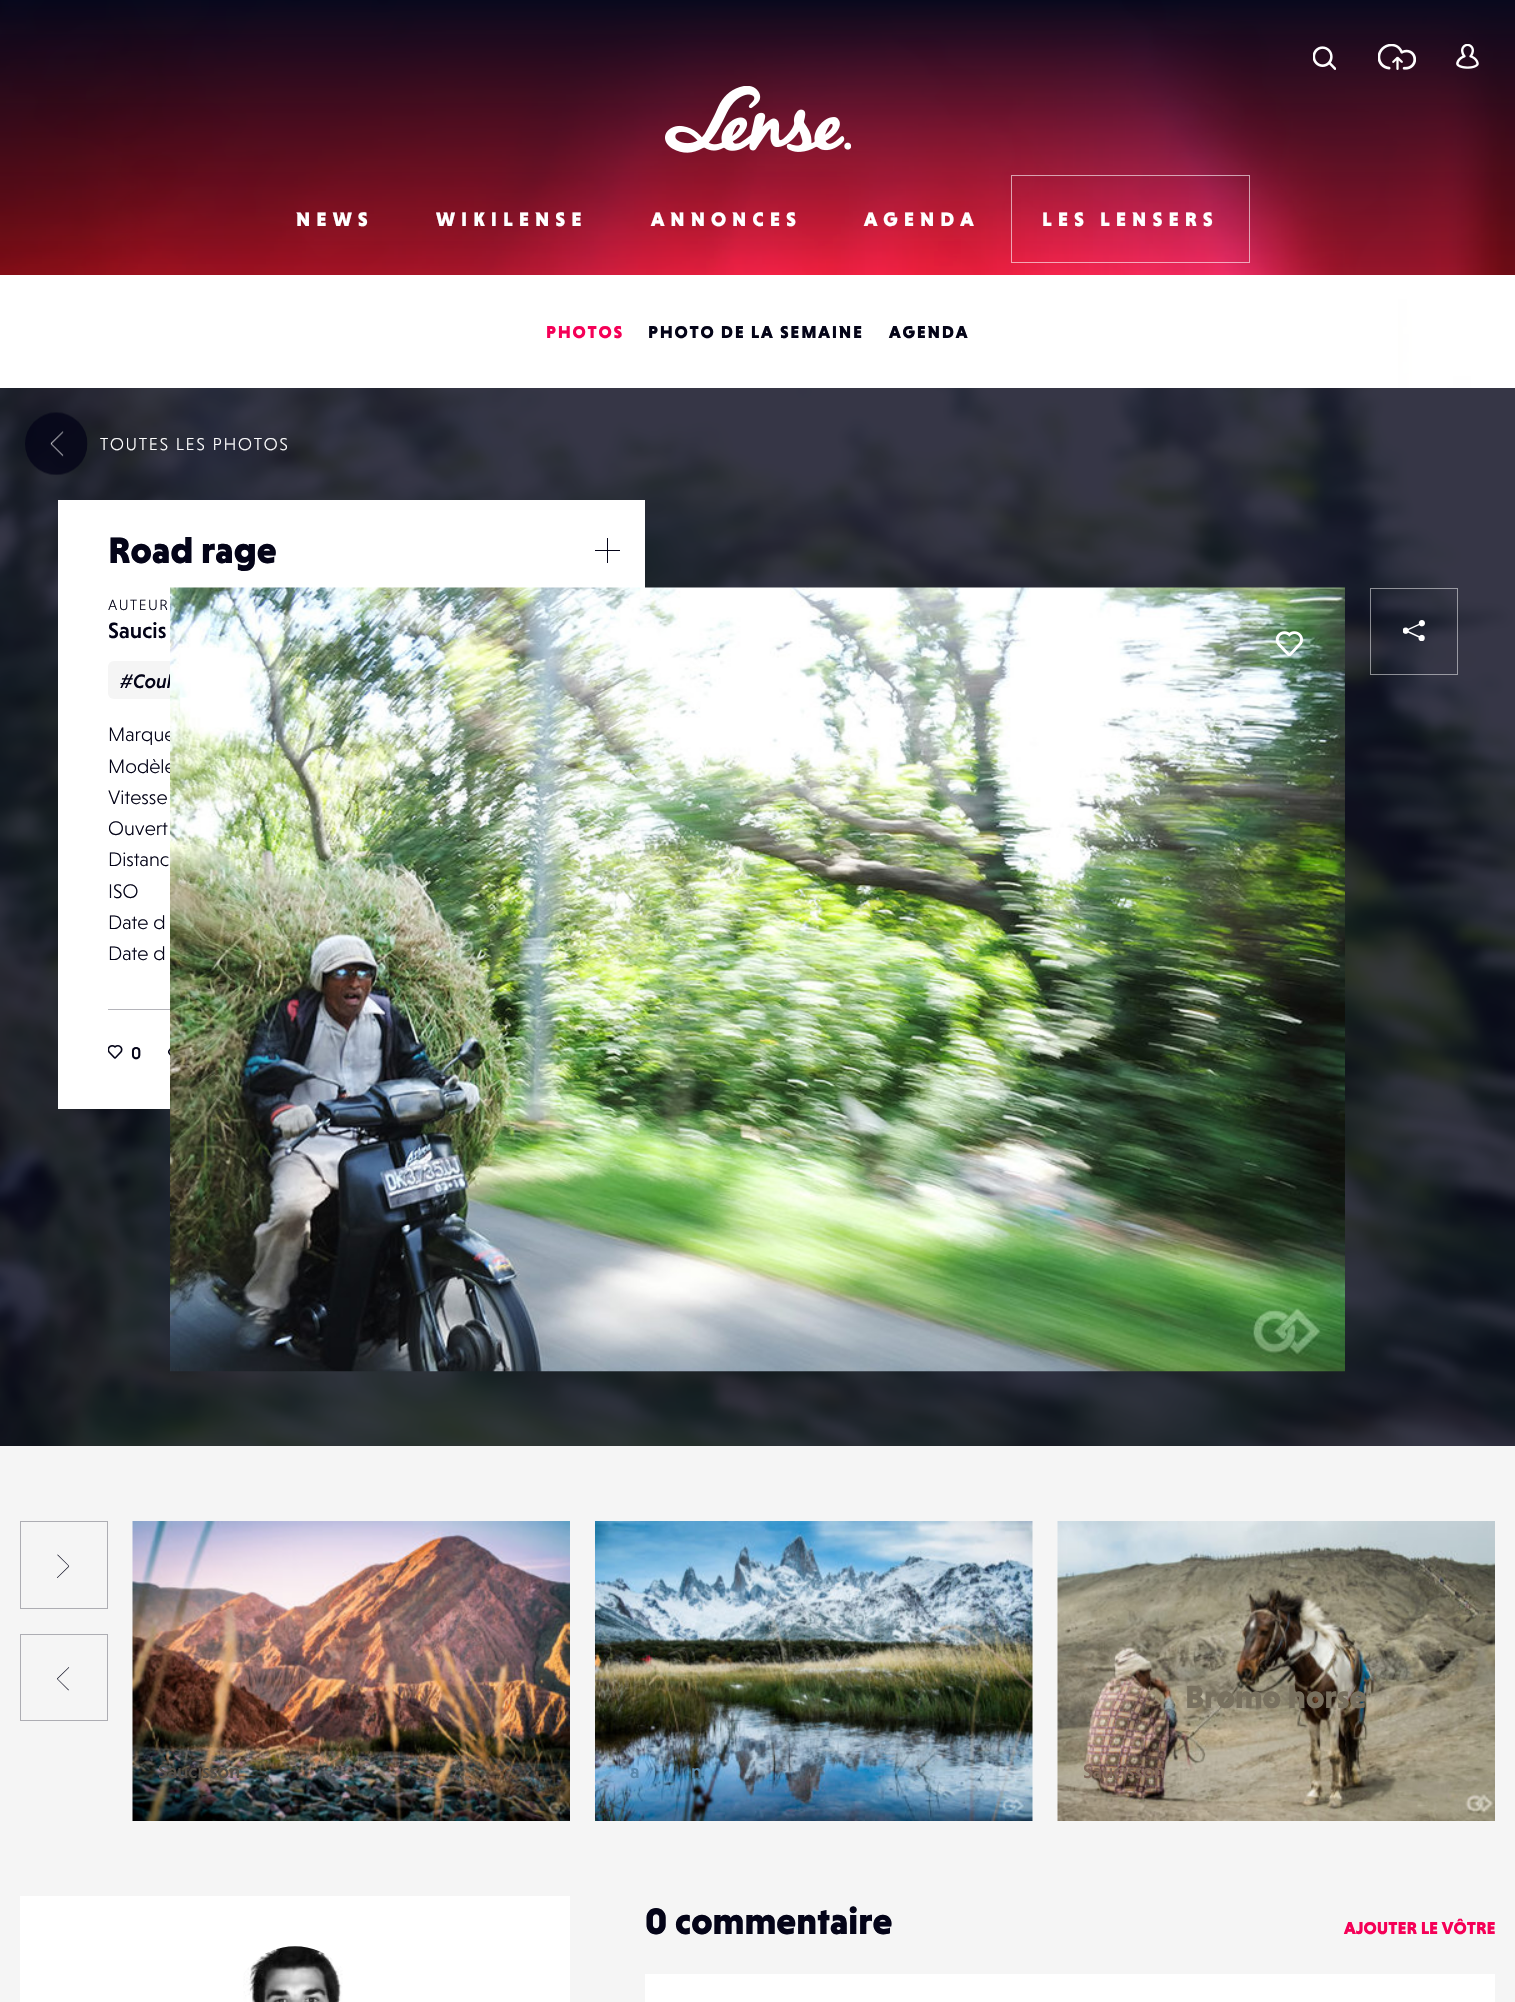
#include "include/core/SkBlurTypes.h"
#include "include/core/SkCanvas.h"
#include "include/core/SkData.h"
#include "include/core/SkFont.h"
#include "include/core/SkFontMgr.h"
#include "include/core/SkImage.h"
#include "include/core/SkMaskFilter.h"
#include "include/core/SkPaint.h"
#include "include/core/SkPathBuilder.h"
#include "include/core/SkTextBlob.h"
#include "include/effects/SkDashPathEffect.h"
#include "include/effects/SkGradientShader.h"
#include "include/utils/SkParsePath.h"

extern sk_sp<SkFontMgr> fontMgr;

void draw(SkCanvas* canvas) {
  SkPaint p;
  p.setAntiAlias(true);
  auto spacedText = [&](const char* s, float x, float y, const SkFont& font, const SkPaint& ink, float letter, float word) {
    std::vector<SkGlyphID> glyphs(font.countText(s, strlen(s), SkTextEncoding::kUTF8));
    std::vector<float> xs(glyphs.size());
    font.textToGlyphs(s, strlen(s), SkTextEncoding::kUTF8, glyphs);
    font.getXPos(glyphs, xs, x);
    float extra = 0;
    for (size_t i = 0; i < glyphs.size(); i++) {
      xs[i] += extra;
      extra += letter + word * (glyphs[i] == font.unicharToGlyph(' '));
    }
    canvas->drawTextBlob(SkTextBlob::MakeFromPosHGlyphs(glyphs, xs, y, font), 0, 0, ink);
  };
  canvas->clear(SK_ColorWHITE);
  canvas->drawImageRect(SkImages::DeferredFromEncodedData(SkData::MakeFromFileName("images/7.png")), SkRect::MakeLTRB(0, 0, 1515, 1446), SkSamplingOptions());
  canvas->drawImageRect(SkImages::DeferredFromEncodedData(SkData::MakeFromFileName("images/1.png")), SkRect::MakeLTRB(0, 0, 1515, 275), SkSamplingOptions());
  canvas->drawImageRect(SkImages::DeferredFromEncodedData(SkData::MakeFromFileName("images/2.png")), SkRect::MakeLTRB(1313, 46, 1336, 70), SkSamplingOptions());
  canvas->drawImageRect(SkImages::DeferredFromEncodedData(SkData::MakeFromFileName("images/3.png")), SkRect::MakeLTRB(1378, 44, 1416, 70), SkSamplingOptions());
  canvas->drawImageRect(SkImages::DeferredFromEncodedData(SkData::MakeFromFileName("images/4.png")), SkRect::MakeLTRB(1392, 56, 1403, 70), SkSamplingOptions());
  canvas->drawImageRect(SkImages::DeferredFromEncodedData(SkData::MakeFromFileName("images/5.png")), SkRect::MakeLTRB(1456, 44, 1479, 69), SkSamplingOptions());
  canvas->drawImageRect(SkImages::DeferredFromEncodedData(SkData::MakeFromFileName("images/6.png")), SkRect::MakeLTRB(665, 86, 851, 153), SkSamplingOptions());
  p.setStyle(SkPaint::kStroke_Style);
  p.setStrokeWidth(1);
  p.setColor(SkColorSetARGB(153, 255, 255, 255));
  canvas->drawRect(SkRect::MakeLTRB(1011.5f, 175.5f, 1249.5f, 262.5f), p);
  p.setStyle(SkPaint::kFill_Style);
  p.setColor(SK_ColorWHITE);
  canvas->drawRect(SkRect::MakeLTRB(0, 275, 1398, 388), p);
  p.setColor(SkColorSetARGB(204, 4, 4, 24));
  canvas->drawRect(SkRect::MakeLTRB(0, 388, 1515, 1446), p);
  canvas->drawImageRect(SkImages::DeferredFromEncodedData(SkData::MakeFromFileName("images/8.png")), SkRect::MakeLTRB(25, 412, 88, 475), SkSamplingOptions());
  p.setColor(SK_ColorWHITE);
  canvas->drawRect(SkRect::MakeLTRB(58, 500, 645, 1109), p);
  p.setColor(SkColorSetRGB(4, 4, 24));
  canvas->drawRect(SkRect::MakeLTRB(595, 550, 620, 551), p);
  canvas->drawRect(SkRect::MakeLTRB(607, 538, 608, 563), p);
  p.setColor(SkColorSetRGB(245, 245, 245));
  canvas->drawRoundRect(SkRect::MakeLTRB(108, 661, 213, 699), 6, 6, p);
  p.setColor(SkColorSetRGB(180, 180, 186));
  canvas->drawRect(SkRect::MakeLTRB(108, 1009, 170, 1010), p);
  canvas->drawImageRect(SkImages::DeferredFromEncodedData(SkData::MakeFromFileName("images/9.png")), SkRect::MakeLTRB(108, 1045, 123, 1059), SkSamplingOptions());
  canvas->drawImageRect(SkImages::DeferredFromEncodedData(SkData::MakeFromFileName("images/10.png")), SkRect::MakeLTRB(168, 1048, 170, 1056), SkSamplingOptions());
  p.setStyle(SkPaint::kStroke_Style);
  p.setColor(SkColorSetARGB(128, 255, 255, 255));
  canvas->drawRect(SkRect::MakeLTRB(1370.5f, 588.5f, 1457.5f, 674.5f), p);
  canvas->drawImageRect(SkImages::DeferredFromEncodedData(SkData::MakeFromFileName("images/13.png")), SkRect::MakeLTRB(1403, 620, 1425, 641), SkSamplingOptions());
  p.setStyle(SkPaint::kFill_Style);
  p.setColor(SkColorSetRGB(245, 245, 245));
  canvas->drawRect(SkRect::MakeLTRB(0, 1446, 1515, 2002), p);
  p.setStyle(SkPaint::kStroke_Style);
  p.setColor(SkColorSetRGB(173, 173, 179));
  canvas->drawRect(SkRect::MakeLTRB(20.5f, 1521.5f, 107.5f, 1608.5f), p);
  canvas->drawImageRect(SkImages::DeferredFromEncodedData(SkData::MakeFromFileName("images/14.png")), SkRect::MakeLTRB(57, 1554, 70, 1578), SkSamplingOptions());
  canvas->drawRect(SkRect::MakeLTRB(20.5f, 1634.5f, 107.5f, 1720.5f), p);
  canvas->drawImageRect(SkImages::DeferredFromEncodedData(SkData::MakeFromFileName("images/15.png")), SkRect::MakeLTRB(57, 1667, 70, 1691), SkSamplingOptions());
  canvas->drawImageRect(SkImages::DeferredFromEncodedData(SkData::MakeFromFileName("images/16.png")), SkRect::MakeLTRB(132, 1521, 570, 1821), SkSamplingOptions());
  canvas->drawImageRect(SkImages::DeferredFromEncodedData(SkData::MakeFromFileName("images/17.png")), SkRect::MakeLTRB(595, 1521, 1033, 1821), SkSamplingOptions());
  canvas->drawImageRect(SkImages::DeferredFromEncodedData(SkData::MakeFromFileName("images/18.png")), SkRect::MakeLTRB(1057, 1521, 1495, 1821), SkSamplingOptions());
  p.setStyle(SkPaint::kFill_Style);
  p.setColor(SK_ColorWHITE);
  canvas->drawRect(SkRect::MakeLTRB(20, 1896, 570, 2002), p);
  canvas->drawImageRect(SkImages::DeferredFromEncodedData(SkData::MakeFromFileName("images/19.png")), SkRect::MakeLTRB(243, 1946, 343, 2002), SkSamplingOptions());
  canvas->drawRect(SkRect::MakeLTRB(645, 1974, 1495, 2002), p);
  SkFont font1(fontMgr->matchFamilyStyle("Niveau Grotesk", SkFontStyle(900, SkFontStyle::kNormal_Width, SkFontStyle::kUpright_Slant)), 20);
  font1.setSubpixel(true);
  spacedText("NEWS", 296, 226, font1, p, 6, 0);
  spacedText("WIKILENSE", 436, 226, font1, p, 6, 0);
  spacedText("ANNONCES", 651, 226, font1, p, 6, 0);
  spacedText("AGENDA", 864, 226, font1, p, 6, 0);
  spacedText("LES LENSERS", 1042, 226, font1, p, 6, 0);
  SkFont font2(fontMgr->matchFamilyStyle("Niveau Grotesk", SkFontStyle(900, SkFontStyle::kNormal_Width, SkFontStyle::kUpright_Slant)), 17.5f);
  font2.setSubpixel(true);
  p.setColor(SkColorSetRGB(245, 0, 87));
  spacedText("PHOTOS", 546, 338, font2, p, 1.75f, 0);
  p.setColor(SkColorSetRGB(4, 4, 24));
  spacedText("PHOTO DE LA SEMAINE", 648, 338, font2, p, 1.75f, 0);
  spacedText("AGENDA", 889, 338, font2, p, 1.75f, 0);
  SkFont font3(fontMgr->matchFamilyStyle("Niveau Grotesk", SkFontStyle(300, SkFontStyle::kNormal_Width, SkFontStyle::kUpright_Slant)), 17.5f);
  font3.setSubpixel(true);
  p.setColor(SK_ColorWHITE);
  spacedText("TOUTES LES PHOTOS", 100, 450, font3, p, 1.75f, 0);
  SkFont font4(fontMgr->matchFamilyStyle("Niveau Grotesk", SkFontStyle(900, SkFontStyle::kNormal_Width, SkFontStyle::kUpright_Slant)), 37.5f);
  font4.setSubpixel(true);
  p.setColor(SkColorSetRGB(4, 4, 24));
  canvas->drawString("Road rage", 108, 563, font4, p);
  SkFont font5(fontMgr->matchFamilyStyle("Niveau Grotesk", SkFontStyle(300, SkFontStyle::kNormal_Width, SkFontStyle::kUpright_Slant)), 15);
  font5.setSubpixel(true);
  spacedText("AUTEUR", 108, 610, font5, p, 1.5f, 0);
  SkFont font6(fontMgr->matchFamilyStyle("Niveau Grotesk", SkFontStyle(500, SkFontStyle::kNormal_Width, SkFontStyle::kUpright_Slant)), 22.5f);
  font6.setSubpixel(true);
  canvas->drawString("Saucis", 108, 638, font6, p);
  SkFont font7(fontMgr->matchFamilyStyle("Niveau Grotesk", SkFontStyle(500, SkFontStyle::kNormal_Width, SkFontStyle::kItalic_Slant)), 20);
  font7.setSubpixel(true);
  canvas->drawString("#Coul", 120, 688, font7, p);
  SkFont font8(fontMgr->matchFamilyStyle("Niveau Grotesk", SkFontStyle(300, SkFontStyle::kNormal_Width, SkFontStyle::kUpright_Slant)), 20);
  font8.setSubpixel(true);
  canvas->drawString("Marque", 108, 741, font8, p);
  canvas->drawString("Modèle", 108, 773, font8, p);
  canvas->drawString("Vitesse", 108, 804, font8, p);
  canvas->drawString("Ouvert", 108, 835, font8, p);
  canvas->drawString("Distanc", 108, 866, font8, p);
  canvas->drawString("ISO", 108, 898, font8, p);
  canvas->drawString("Date d", 108, 929, font8, p);
  canvas->drawString("Date d", 108, 960, font8, p);
  SkFont font9(fontMgr->matchFamilyStyle("Niveau Grotesk", SkFontStyle(500, SkFontStyle::kNormal_Width, SkFontStyle::kUpright_Slant)), 17.5f);
  font9.setSubpixel(true);
  canvas->drawString("0", 131, 1059, font9, p);
  canvas->drawImageRect(SkImages::DeferredFromEncodedData(SkData::MakeFromFileName("images/11.png")), SkRect::MakeLTRB(170, 587, 1345, 1372), SkSamplingOptions());
  canvas->drawImageRect(SkImages::DeferredFromEncodedData(SkData::MakeFromFileName("images/12.png")), SkRect::MakeLTRB(1275, 631, 1303, 656), SkSamplingOptions());
  SkFont font10(fontMgr->matchFamilyStyle("Niveau Grotesk", SkFontStyle(500, SkFontStyle::kNormal_Width, SkFontStyle::kUpright_Slant)), 20);
  font10.setSubpixel(true);
  p.setColor(SkColorSetRGB(84, 78, 71));
  canvas->drawString("Saucisson", 158, 1778, font10, p);
  p.setColor(SkColorSetRGB(88, 136, 172));
  canvas->drawString("a", 630, 1778, font10, p);
  canvas->drawString("n", 691, 1778, font10, p);
  SkFont font11(fontMgr->matchFamilyStyle("Niveau Grotesk", SkFontStyle(900, SkFontStyle::kNormal_Width, SkFontStyle::kUpright_Slant)), 32.5f);
  font11.setSubpixel(true);
  p.setColor(SkColorSetRGB(120, 112, 95));
  canvas->drawString("Bromo horse", 1185, 1708, font11, p);
  p.setColor(SkColorSetRGB(130, 106, 92));
  canvas->drawString("Saucisson", 1083, 1778, font10, p);
  p.setColor(SkColorSetRGB(4, 4, 24));
  canvas->drawString("0 commentaire", 645, 1934, font4, p);
  p.setColor(SkColorSetRGB(245, 0, 87));
  canvas->drawString("AJOUTER LE VÔTRE", 1344, 1934, font2, p);
}
